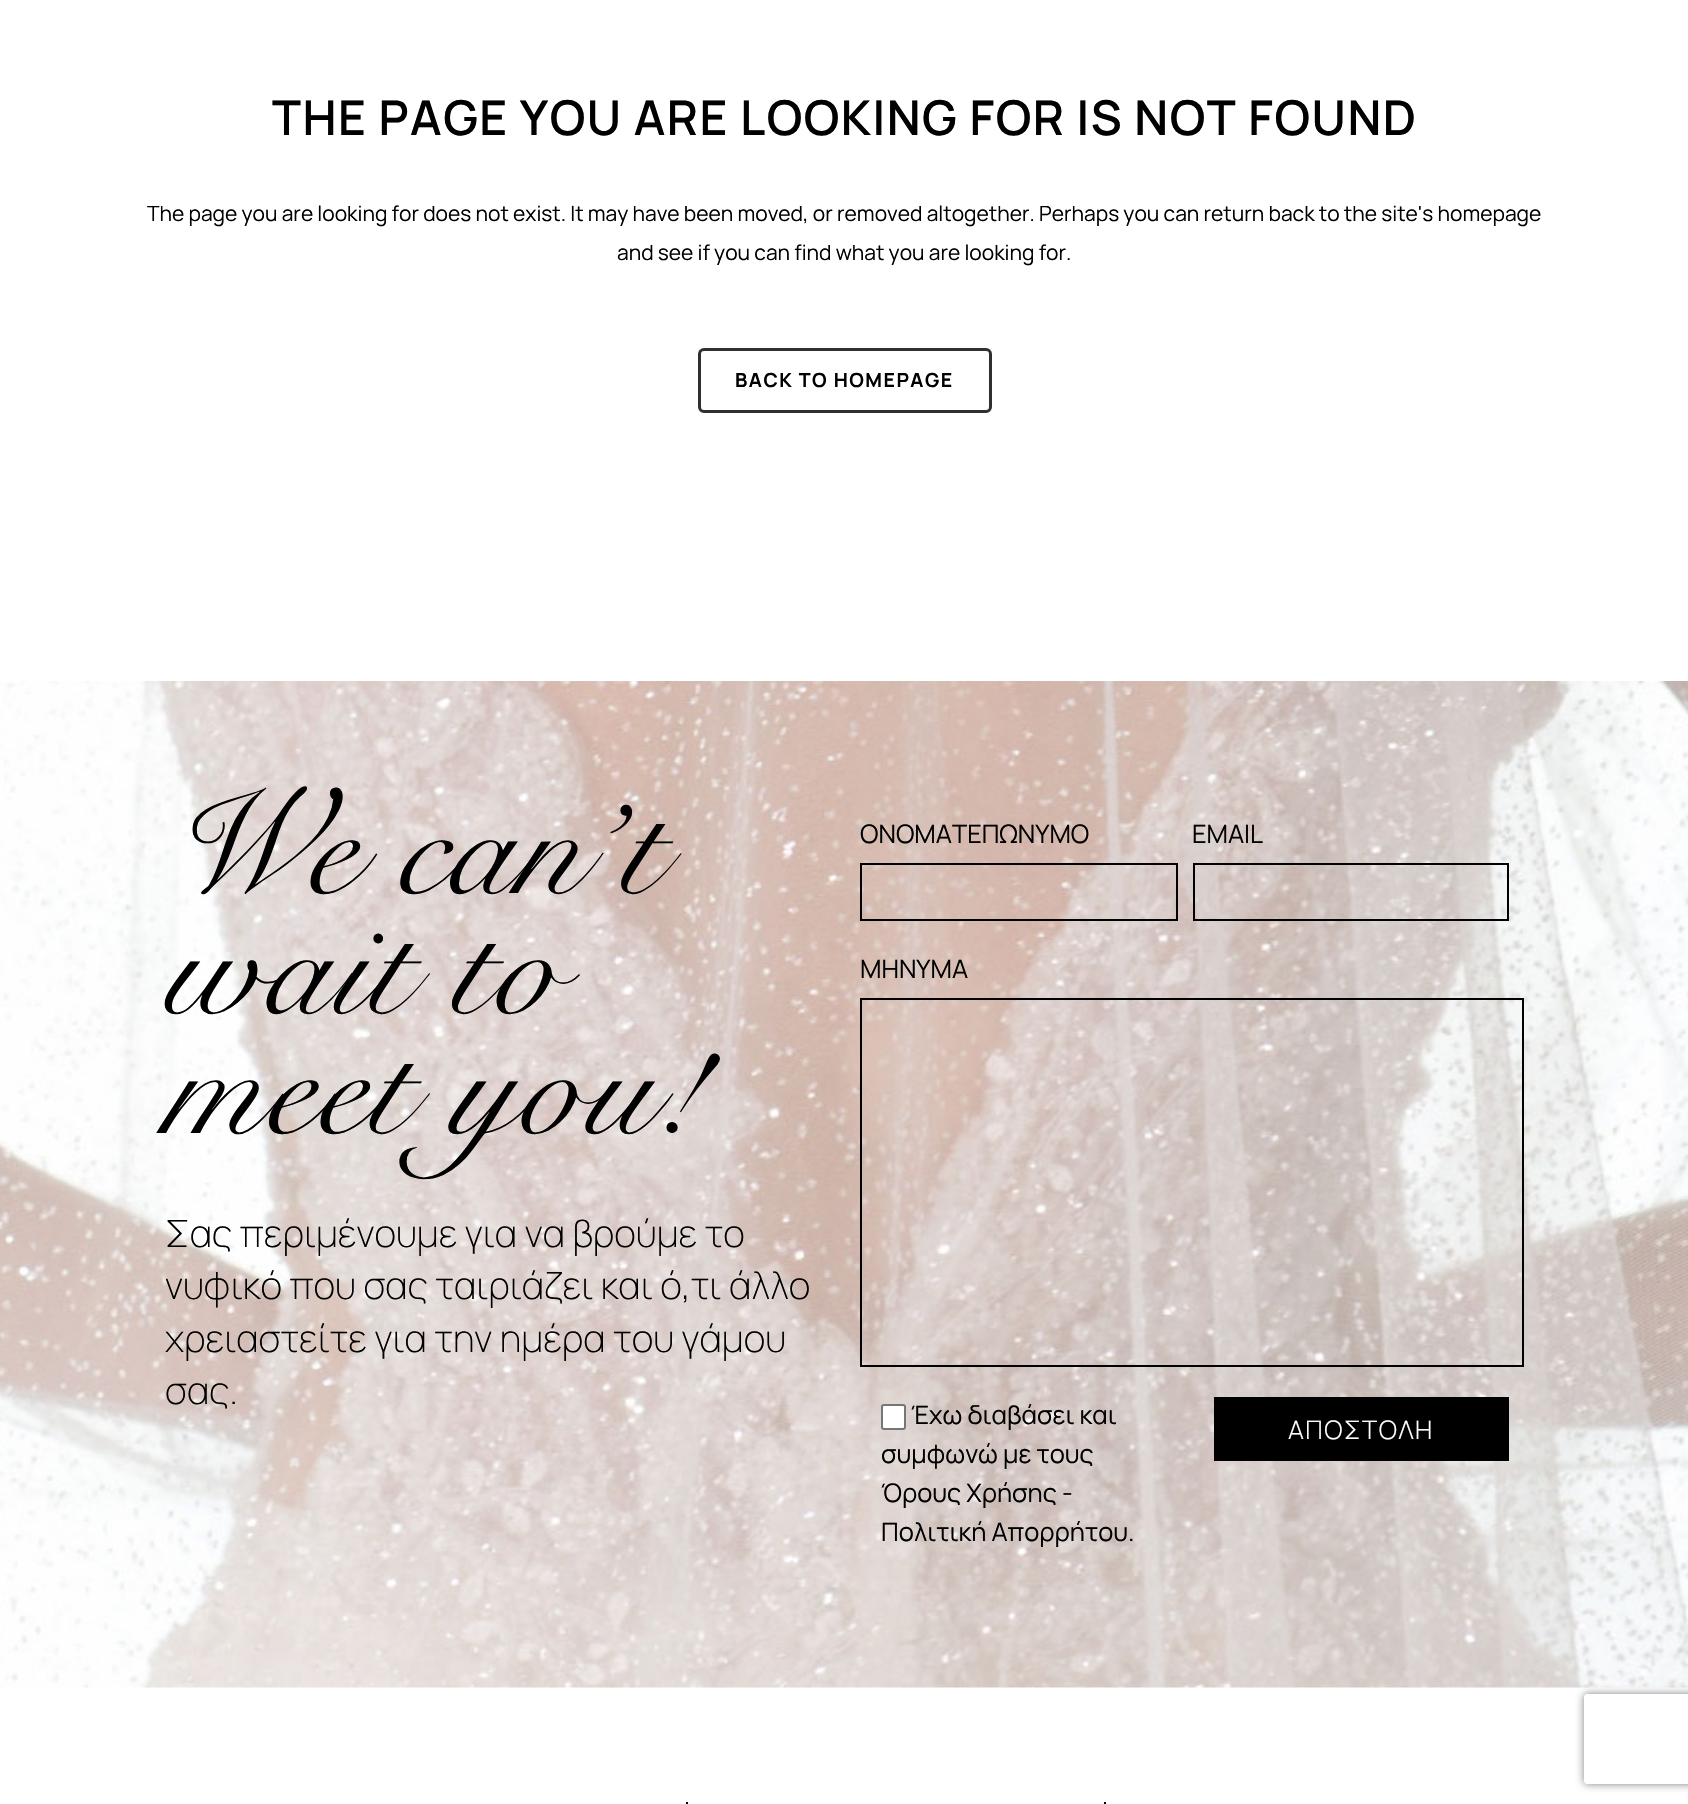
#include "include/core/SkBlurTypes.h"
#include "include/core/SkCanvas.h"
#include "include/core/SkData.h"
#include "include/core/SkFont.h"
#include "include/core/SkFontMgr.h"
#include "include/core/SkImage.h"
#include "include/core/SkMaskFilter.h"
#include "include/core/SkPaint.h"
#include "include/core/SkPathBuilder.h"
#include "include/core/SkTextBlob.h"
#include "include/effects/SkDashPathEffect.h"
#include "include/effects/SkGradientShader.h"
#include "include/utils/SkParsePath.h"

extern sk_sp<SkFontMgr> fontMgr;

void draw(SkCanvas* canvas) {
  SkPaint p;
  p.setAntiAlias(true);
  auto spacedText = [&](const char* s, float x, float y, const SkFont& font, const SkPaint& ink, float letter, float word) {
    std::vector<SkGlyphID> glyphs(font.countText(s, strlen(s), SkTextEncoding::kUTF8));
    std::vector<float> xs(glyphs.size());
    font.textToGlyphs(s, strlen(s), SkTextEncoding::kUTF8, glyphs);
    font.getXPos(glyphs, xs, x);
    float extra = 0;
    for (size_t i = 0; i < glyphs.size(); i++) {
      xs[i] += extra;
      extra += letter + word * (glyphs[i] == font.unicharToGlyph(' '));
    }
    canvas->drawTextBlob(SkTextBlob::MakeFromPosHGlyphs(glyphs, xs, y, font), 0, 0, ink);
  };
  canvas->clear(SK_ColorWHITE);
  p.setStyle(SkPaint::kStroke_Style);
  p.setStrokeWidth(3);
  p.setColor(SkColorSetRGB(48, 48, 48));
  canvas->drawRoundRect(SkRect::MakeLTRB(699.5f, 349.5f, 990.5f, 411.5f), 4.5f, 4.5f, p);
  canvas->drawImageRect(SkImages::DeferredFromEncodedData(SkData::MakeFromFileName("images/1.png")), SkRect::MakeLTRB(0, 681, 1688, 1688), SkSamplingOptions());
  p.setStrokeWidth(2);
  p.setColor(SK_ColorBLACK);
  canvas->drawRect(SkRect::MakeLTRB(861, 864, 1177, 920), p);
  canvas->drawRect(SkRect::MakeLTRB(1194, 864, 1508, 920), p);
  canvas->drawRect(SkRect::MakeLTRB(861, 999, 1523, 1366), p);
  p.setStyle(SkPaint::kFill_Style);
  p.setColor(SK_ColorWHITE);
  canvas->drawRoundRect(SkRect::MakeLTRB(882, 1405, 905, 1429), 2, 2, p);
  p.setStyle(SkPaint::kStroke_Style);
  p.setColor(SkColorSetRGB(118, 118, 118));
  canvas->drawRoundRect(SkRect::MakeLTRB(882, 1405, 905, 1429), 2, 2, p);
  p.setStyle(SkPaint::kFill_Style);
  p.setColor(SK_ColorBLACK);
  canvas->drawRect(SkRect::MakeLTRB(1214, 1397, 1509, 1461), p);
  canvas->drawRect(SkRect::MakeLTRB(686, 1802, 688, 1804), p);
  canvas->drawRect(SkRect::MakeLTRB(1104, 1802, 1106, 1804), p);
  canvas->save();
  canvas->clipPath(SkPathBuilder(SkPathFillType::kEvenOdd).moveTo(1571, 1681).lineTo(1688, 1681).lineTo(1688, 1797).lineTo(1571, 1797).close().moveTo(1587, 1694).lineTo(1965, 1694).cubicTo(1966.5f, 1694, 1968, 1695.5f, 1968, 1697).lineTo(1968, 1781).cubicTo(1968, 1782.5f, 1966.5f, 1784, 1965, 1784).lineTo(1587, 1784).cubicTo(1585.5f, 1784, 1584, 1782.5f, 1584, 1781).lineTo(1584, 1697).cubicTo(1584, 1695.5f, 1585.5f, 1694, 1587, 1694).close().detach(), true);
  p.setColor(SkColorSetRGB(128, 128, 128));
  p.setMaskFilter(SkMaskFilter::MakeBlur(kNormal_SkBlurStyle, 4));
  canvas->drawRoundRect(SkRect::MakeLTRB(1584, 1694, 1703, 1784), 3, 3, p);
  p.setMaskFilter(nullptr);
  canvas->restore();
  SkFont font1(fontMgr->matchFamilyStyle("Manrope", SkFontStyle(600, SkFontStyle::kNormal_Width, SkFontStyle::kUpright_Slant)), 48);
  font1.setSubpixel(true);
  p.setColor(SK_ColorBLACK);
  spacedText("THE PAGE YOU ARE LOOKING FOR IS NOT FOUND", 272, 135, font1, p, 1.5f, 0);
  SkFont font2(fontMgr->matchFamilyStyle("Manrope", SkFontStyle::Normal()), 21);
  font2.setSubpixel(true);
  canvas->drawString("The page you are looking for does not exist. It may have been moved, or removed altogether. Perhaps you can return back to the site's homepage", 147, 221, font2, p);
  canvas->drawString("and see if you can find what you are looking for.", 617, 260, font2, p);
  SkFont font3(fontMgr->matchFamilyStyle("Manrope", SkFontStyle::Bold()), 19.5f);
  font3.setSubpixel(true);
  spacedText("BACK TO HOMEPAGE", 735, 387, font3, p, 1.5f, 0);
  SkFont font4(fontMgr->matchFamilyStyle("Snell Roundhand", SkFontStyle(500, SkFontStyle::kNormal_Width, SkFontStyle::kUpright_Slant)), 150);
  font4.setSubpixel(true);
  spacedText("We can’t", 165, 893, font4, p, 1.5f, 0);
  spacedText("wait to", 165, 1013, font4, p, 1.5f, 0);
  spacedText("meet you!", 165, 1133, font4, p, 1.5f, 0);
  SkFont font5(fontMgr->matchFamilyStyle("Manrope", SkFontStyle(200, SkFontStyle::kNormal_Width, SkFontStyle::kUpright_Slant)), 37.5f);
  font5.setSubpixel(true);
  canvas->drawString("Σας περιμένουμε για να βρούμε το", 165, 1247, font5, p);
  canvas->drawString("νυφικό που σας ταιριάζει και ό,τι άλλο", 165, 1299, font5, p);
  canvas->drawString("χρειαστείτε για την ημέρα του γάμου", 165, 1352, font5, p);
  canvas->drawString("σας.", 165, 1404, font5, p);
  SkFont font6(fontMgr->matchFamilyStyle("Manrope", SkFontStyle::Normal()), 25.5f);
  font6.setSubpixel(true);
  canvas->drawString("ΟΝΟΜΑΤΕΠΩΝΥΜΟ", 860, 843, font6, p);
  canvas->drawString("EMAIL", 1192, 843, font6, p);
  canvas->drawString("ΜΗΝΥΜΑ", 860, 978, font6, p);
  canvas->drawString("Έχω διαβάσει και", 911, 1424, font6, p);
  canvas->drawString("συμφωνώ με τους", 881, 1463, font6, p);
  canvas->drawString("Όρους Χρήσης -", 881, 1502, font6, p);
  canvas->drawString("Πολιτική Απορρήτου.", 881, 1541, font6, p);
  SkFont font7(fontMgr->matchFamilyStyle("Manrope", SkFontStyle(300, SkFontStyle::kNormal_Width, SkFontStyle::kUpright_Slant)), 25.5f);
  font7.setSubpixel(true);
  p.setColor(SK_ColorWHITE);
  spacedText("ΑΠΟΣΤΟΛΗ", 1288, 1439, font7, p, 1.5f, 0);
}
